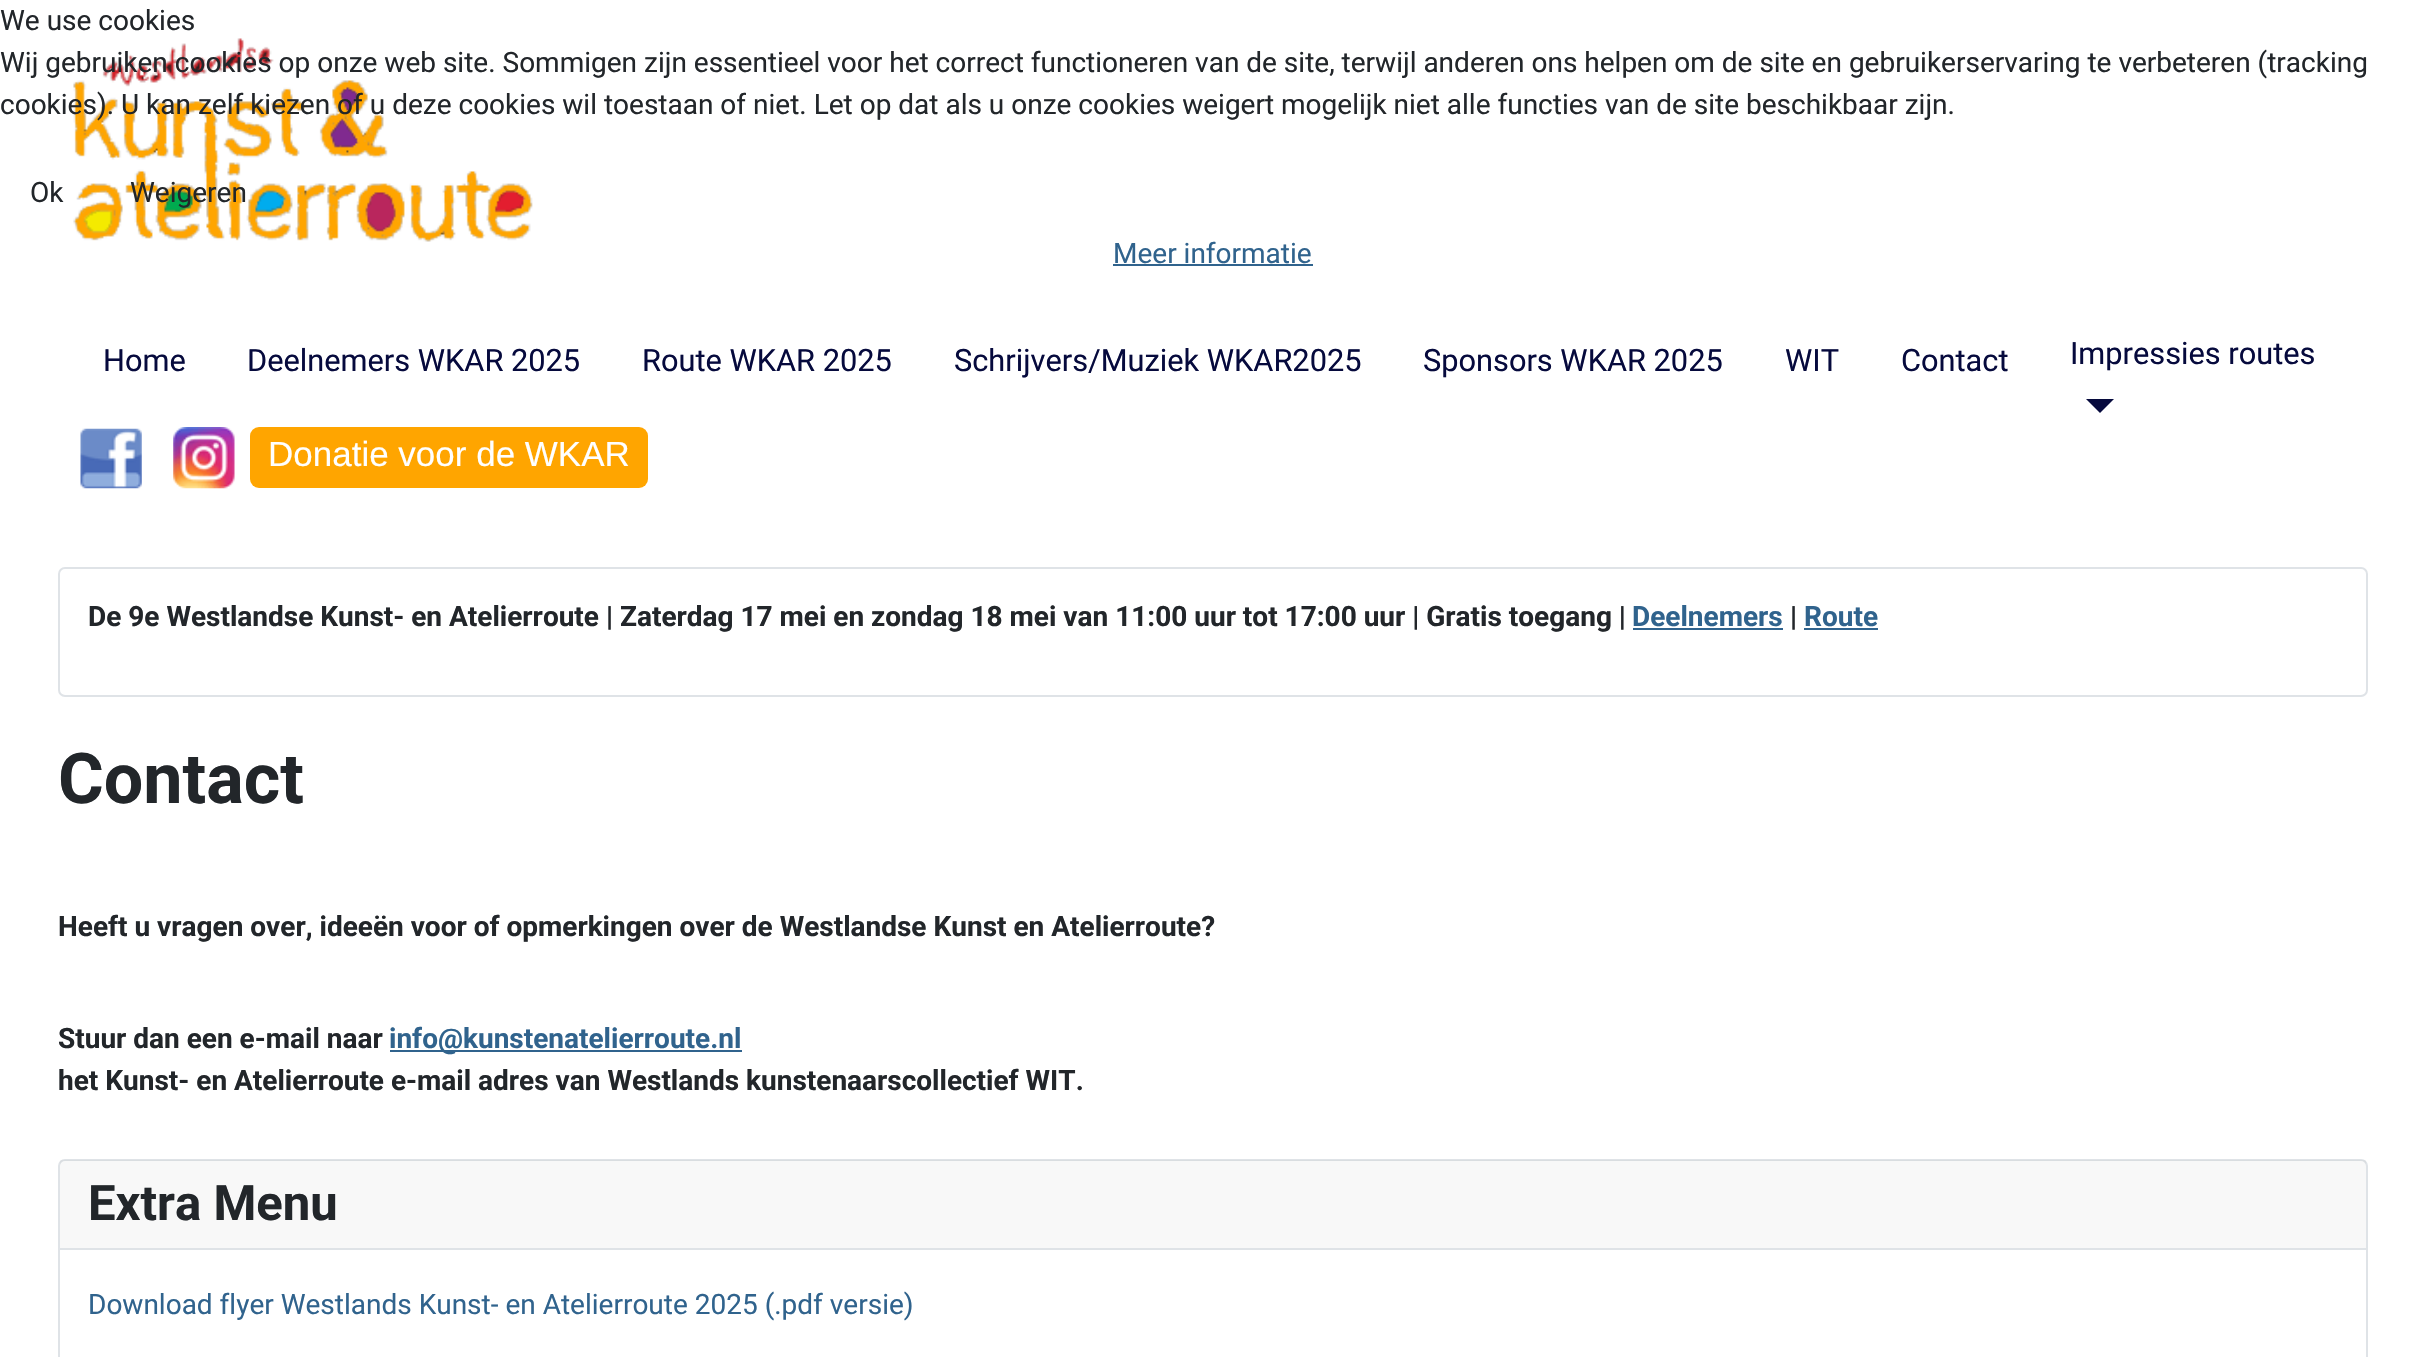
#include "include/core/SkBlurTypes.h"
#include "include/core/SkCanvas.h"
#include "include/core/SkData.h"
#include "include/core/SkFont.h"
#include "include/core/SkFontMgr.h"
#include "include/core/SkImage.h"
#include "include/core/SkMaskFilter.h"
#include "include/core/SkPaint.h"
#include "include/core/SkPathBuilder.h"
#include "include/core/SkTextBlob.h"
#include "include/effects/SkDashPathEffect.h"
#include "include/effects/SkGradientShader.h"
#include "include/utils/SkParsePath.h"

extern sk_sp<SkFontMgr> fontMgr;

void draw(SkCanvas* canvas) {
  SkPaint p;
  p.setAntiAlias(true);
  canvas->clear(SK_ColorWHITE);
  p.setColor(SkColorSetRGB(48, 99, 141));
  canvas->drawRect(SkRect::MakeLTRB(1113, 264, 1313, 266), p);
  canvas->drawImageRect(SkImages::DeferredFromEncodedData(SkData::MakeFromFileName("images/1.png")), SkRect::MakeLTRB(73, 38, 533, 242), SkSamplingOptions());
  p.setColor(SkColorSetRGB(6, 10, 61));
  canvas->drawPath(SkPathBuilder().moveTo(2086, 399).lineTo(2114, 399).lineTo(2100, 413).close().detach(), p);
  canvas->drawImageRect(SkImages::DeferredFromEncodedData(SkData::MakeFromFileName("images/2.png")), SkRect::MakeLTRB(80, 428, 142, 489), SkSamplingOptions());
  canvas->drawImageRect(SkImages::DeferredFromEncodedData(SkData::MakeFromFileName("images/3.png")), SkRect::MakeLTRB(173, 427, 235, 489), SkSamplingOptions());
  p.setColor(SkColorSetRGB(255, 165, 0));
  canvas->drawRoundRect(SkRect::MakeLTRB(250, 427, 648, 488), 9, 9, p);
  p.setStyle(SkPaint::kStroke_Style);
  p.setStrokeWidth(2);
  p.setColor(SkColorSetRGB(223, 227, 231));
  canvas->drawRoundRect(SkRect::MakeLTRB(59, 568, 2367, 696), 6, 6, p);
  p.setStyle(SkPaint::kFill_Style);
  p.setColor(SkColorSetRGB(48, 99, 141));
  canvas->drawRect(SkRect::MakeLTRB(1633, 628, 1783, 630), p);
  canvas->drawRect(SkRect::MakeLTRB(1804, 628, 1878, 630), p);
  canvas->drawRect(SkRect::MakeLTRB(390, 1050, 742, 1052), p);
  p.setStyle(SkPaint::kStroke_Style);
  p.setColor(SkColorSetRGB(223, 227, 231));
  canvas->drawRoundRect(SkRect::MakeLTRB(59, 1160, 2367, 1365), 6, 6, p);
  p.setStyle(SkPaint::kFill_Style);
  p.setColor(SkColorSetARGB(8, 34, 38, 42));
  canvas->drawRect(SkRect::MakeLTRB(60, 1160, 2366, 1248), p);
  p.setColor(SkColorSetRGB(223, 227, 231));
  canvas->drawRect(SkRect::MakeLTRB(60, 1248, 2366, 1250), p);
  SkFont font1(fontMgr->matchFamilyStyle("Roboto", SkFontStyle::Normal()), 28);
  font1.setSubpixel(true);
  p.setColor(SkColorSetRGB(34, 38, 42));
  canvas->drawString("We use cookies", 0, 30, font1, p);
  canvas->drawString("Wij gebruiken cookies op onze web site. Sommigen zijn essentieel voor het correct functioneren van de site, terwijl anderen ons helpen om de site en gebruikerservaring te verbeteren (tracking", 0, 72, font1, p);
  canvas->drawString("cookies). U kan zelf kiezen of u deze cookies wil toestaan of niet. Let op dat als u onze cookies weigert mogelijk niet alle functies van de site beschikbaar zijn.", 0, 114, font1, p);
  canvas->drawString("Ok", 30, 202, font1, p);
  canvas->drawString("Weigeren", 130, 202, font1, p);
  p.setColor(SkColorSetRGB(48, 99, 141));
  canvas->drawString("Meer informatie", 1113, 263, font1, p);
  SkFont font2(fontMgr->matchFamilyStyle("Roboto", SkFontStyle::Normal()), 30.75f);
  font2.setSubpixel(true);
  p.setColor(SkColorSetRGB(6, 10, 61));
  canvas->drawString("Home", 103, 371, font2, p);
  canvas->drawString("Deelnemers WKAR 2025", 247, 371, font2, p);
  canvas->drawString("Route WKAR 2025", 642, 371, font2, p);
  canvas->drawString("Schrijvers/Muziek WKAR2025", 954, 371, font2, p);
  canvas->drawString("Sponsors WKAR 2025", 1423, 371, font2, p);
  canvas->drawString("WIT", 1785, 371, font2, p);
  canvas->drawString("Contact", 1901, 371, font2, p);
  canvas->drawString("Impressies routes", 2070, 364, font2, p);
  SkFont font3(fontMgr->matchFamilyStyle("Liberation Sans", SkFontStyle::Normal()), 35);
  font3.setSubpixel(true);
  p.setColor(SK_ColorWHITE);
  canvas->drawString("Donatie voor de WKAR", 268, 466, font3, p);
  SkFont font4(fontMgr->matchFamilyStyle("Roboto", SkFontStyle::Bold()), 28);
  font4.setSubpixel(true);
  p.setColor(SkColorSetRGB(34, 38, 42));
  canvas->drawString("De 9e Westlandse Kunst- en Atelierroute | Zaterdag 17 mei en zondag 18 mei van 11:00 uur tot 17:00 uur | Gratis toegang |", 88, 626, font4, p);
  p.setColor(SkColorSetRGB(48, 99, 141));
  canvas->drawString("Deelnemers", 1632, 626, font4, p);
  p.setColor(SkColorSetRGB(34, 38, 42));
  canvas->drawString("|", 1790, 626, font4, p);
  p.setColor(SkColorSetRGB(48, 99, 141));
  canvas->drawString("Route", 1804, 626, font4, p);
  SkFont font5(fontMgr->matchFamilyStyle("Roboto", SkFontStyle::Bold()), 70);
  font5.setSubpixel(true);
  p.setColor(SkColorSetRGB(34, 38, 42));
  canvas->drawString("Contact", 58, 803, font5, p);
  canvas->drawString("Heeft u vragen over, ideeën voor of opmerkingen over de Westlandse Kunst en Atelierroute?", 58, 936, font4, p);
  canvas->drawString("Stuur dan een e-mail naar", 58, 1048, font4, p);
  p.setColor(SkColorSetRGB(48, 99, 141));
  canvas->drawString("info@kunstenatelierroute.nl", 389, 1048, font4, p);
  p.setColor(SkColorSetRGB(34, 38, 42));
  canvas->drawString("het Kunst- en Atelierroute e-mail adres van Westlands kunstenaarscollectief WIT.", 58, 1090, font4, p);
  SkFont font6(fontMgr->matchFamilyStyle("Roboto", SkFontStyle::Bold()), 49);
  font6.setSubpixel(true);
  canvas->drawString("Extra Menu", 88, 1220, font6, p);
  p.setColor(SkColorSetRGB(48, 99, 141));
  canvas->drawString("Download flyer Westlands Kunst- en Atelierroute 2025 (.pdf versie)", 88, 1314, font1, p);
}
